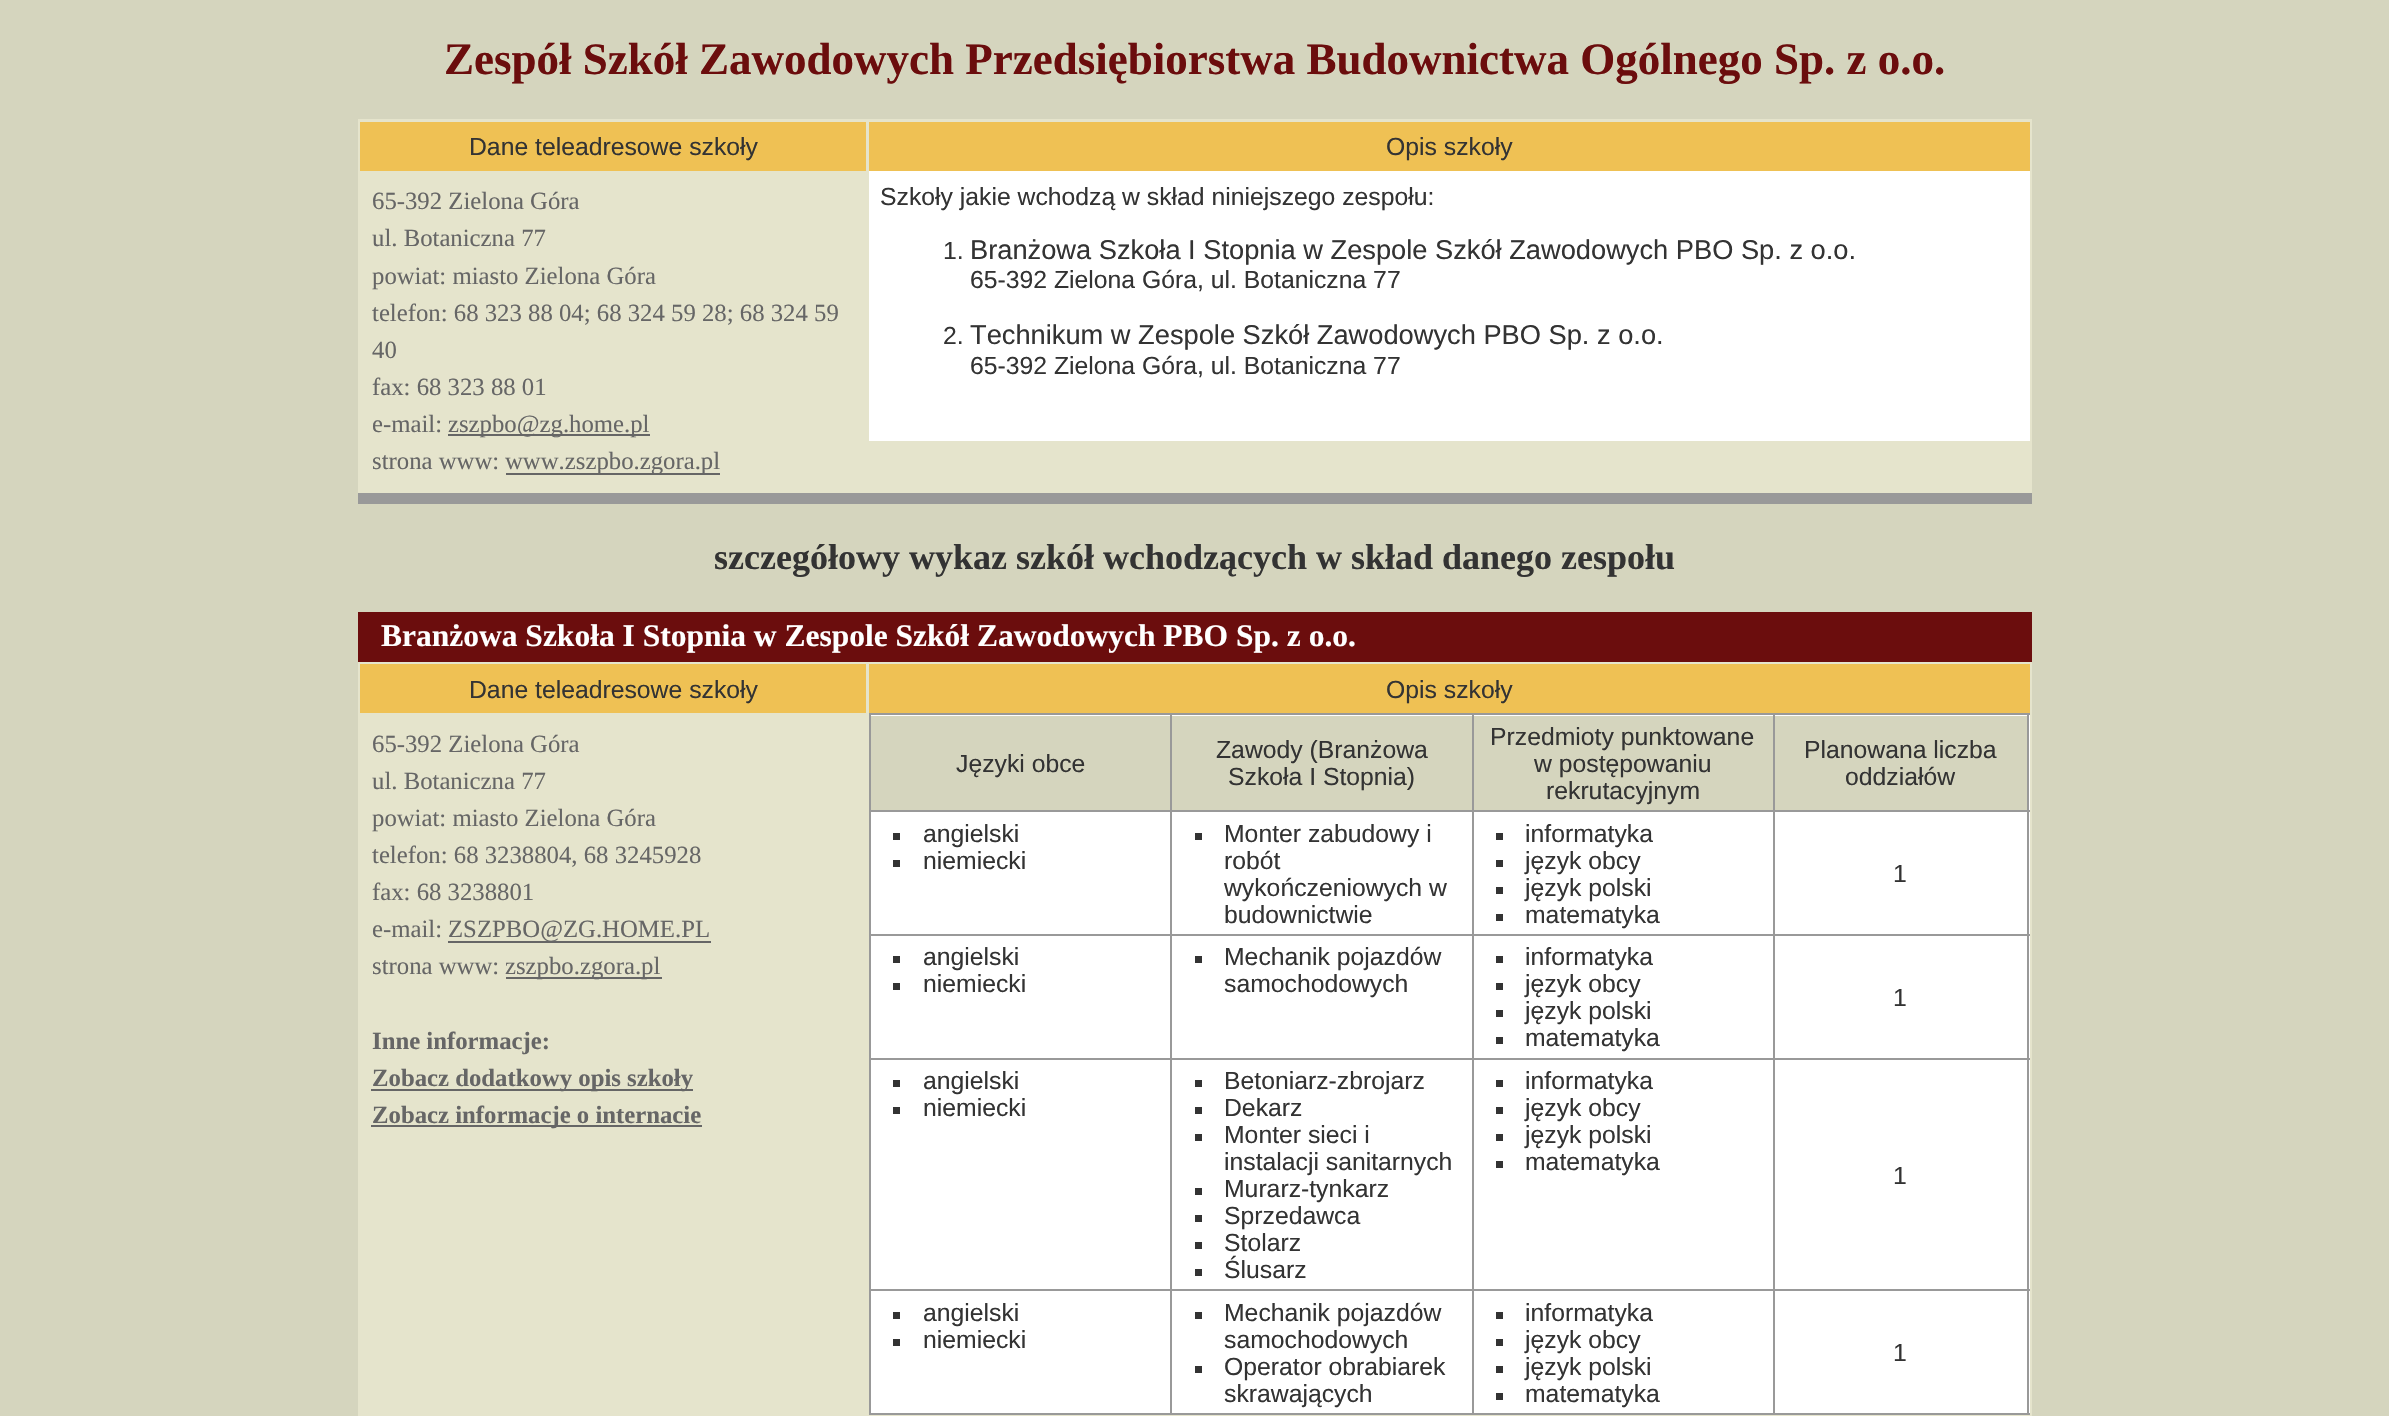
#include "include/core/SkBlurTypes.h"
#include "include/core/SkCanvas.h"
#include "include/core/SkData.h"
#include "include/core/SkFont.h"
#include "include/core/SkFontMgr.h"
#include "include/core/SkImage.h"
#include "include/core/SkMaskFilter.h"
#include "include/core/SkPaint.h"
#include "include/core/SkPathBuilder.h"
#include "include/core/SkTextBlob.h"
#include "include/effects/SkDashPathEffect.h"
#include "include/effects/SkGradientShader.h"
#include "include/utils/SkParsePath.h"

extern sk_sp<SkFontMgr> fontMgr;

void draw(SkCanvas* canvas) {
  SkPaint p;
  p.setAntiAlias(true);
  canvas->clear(SkColorSetRGB(213, 213, 190));
  p.setColor(SkColorSetRGB(229, 228, 204));
  canvas->drawRect(SkRect::MakeLTRB(358, 119, 2032, 493), p);
  p.setColor(SkColorSetRGB(153, 153, 153));
  canvas->drawRect(SkRect::MakeLTRB(358, 493, 2032, 504), p);
  p.setColor(SkColorSetRGB(239, 193, 84));
  canvas->drawRect(SkRect::MakeLTRB(360, 122, 866, 171), p);
  p.setColor(SkColorSetRGB(102, 102, 102));
  canvas->drawRect(SkRect::MakeLTRB(448, 434, 650, 436), p);
  canvas->drawRect(SkRect::MakeLTRB(506, 473, 720, 475), p);
  p.setColor(SkColorSetRGB(239, 193, 84));
  canvas->drawRect(SkRect::MakeLTRB(869, 122, 2030, 171), p);
  p.setColor(SK_ColorWHITE);
  canvas->drawRect(SkRect::MakeLTRB(869, 171, 2030, 441), p);
  p.setColor(SkColorSetRGB(107, 13, 13));
  canvas->drawRect(SkRect::MakeLTRB(358, 612, 2032, 662), p);
  p.setColor(SkColorSetRGB(229, 228, 204));
  canvas->drawRect(SkRect::MakeLTRB(358, 662, 2032, 1416), p);
  p.setColor(SkColorSetRGB(239, 193, 84));
  canvas->drawRect(SkRect::MakeLTRB(360, 664, 866, 713), p);
  p.setColor(SkColorSetRGB(102, 102, 102));
  canvas->drawRect(SkRect::MakeLTRB(448, 941, 711, 943), p);
  canvas->drawRect(SkRect::MakeLTRB(506, 977, 662, 979), p);
  canvas->drawRect(SkRect::MakeLTRB(371, 1089, 693, 1091), p);
  canvas->drawRect(SkRect::MakeLTRB(371, 1125, 702, 1127), p);
  p.setColor(SkColorSetRGB(239, 193, 84));
  canvas->drawRect(SkRect::MakeLTRB(869, 664, 2030, 713), p);
  p.setColor(SK_ColorWHITE);
  canvas->drawRect(SkRect::MakeLTRB(871, 715, 2030, 1413), p);
  p.setColor(SkColorSetRGB(213, 213, 190));
  canvas->drawRect(SkRect::MakeLTRB(871, 716, 1170, 810), p);
  p.setColor(SkColorSetRGB(153, 153, 153));
  canvas->drawRect(SkRect::MakeLTRB(1773, 713, 2030, 715), p);
  canvas->drawRect(SkRect::MakeLTRB(1773, 810, 2030, 812), p);
  canvas->drawRect(SkRect::MakeLTRB(1773, 934, 2030, 936), p);
  canvas->drawRect(SkRect::MakeLTRB(1773, 1058, 2030, 1060), p);
  canvas->drawRect(SkRect::MakeLTRB(1773, 1289, 2030, 1291), p);
  canvas->drawRect(SkRect::MakeLTRB(2027, 1289, 2029, 1415), p);
  canvas->drawRect(SkRect::MakeLTRB(1773, 1413, 2030, 1415), p);
  canvas->drawRect(SkRect::MakeLTRB(1773, 1289, 1775, 1415), p);
  canvas->drawRect(SkRect::MakeLTRB(1472, 1289, 1775, 1291), p);
  canvas->drawRect(SkRect::MakeLTRB(1773, 1058, 1775, 1292), p);
  canvas->drawRect(SkRect::MakeLTRB(1472, 1058, 1775, 1060), p);
  canvas->drawRect(SkRect::MakeLTRB(1773, 934, 1775, 1060), p);
  canvas->drawRect(SkRect::MakeLTRB(1472, 934, 1775, 936), p);
  canvas->drawRect(SkRect::MakeLTRB(1773, 810, 1775, 936), p);
  canvas->drawRect(SkRect::MakeLTRB(1472, 810, 1775, 812), p);
  canvas->drawRect(SkRect::MakeLTRB(1773, 713, 1775, 812), p);
  canvas->drawRect(SkRect::MakeLTRB(1472, 713, 1775, 715), p);
  canvas->drawRect(SkRect::MakeLTRB(1472, 1413, 1775, 1415), p);
  canvas->drawRect(SkRect::MakeLTRB(1472, 1289, 1474, 1415), p);
  canvas->drawRect(SkRect::MakeLTRB(1170, 1289, 1474, 1291), p);
  canvas->drawRect(SkRect::MakeLTRB(1472, 1058, 1474, 1292), p);
  canvas->drawRect(SkRect::MakeLTRB(1170, 1058, 1474, 1060), p);
  canvas->drawRect(SkRect::MakeLTRB(1472, 934, 1474, 1060), p);
  canvas->drawRect(SkRect::MakeLTRB(1170, 934, 1474, 936), p);
  canvas->drawRect(SkRect::MakeLTRB(1472, 810, 1474, 936), p);
  canvas->drawRect(SkRect::MakeLTRB(1170, 810, 1474, 812), p);
  canvas->drawRect(SkRect::MakeLTRB(1472, 713, 1474, 812), p);
  canvas->drawRect(SkRect::MakeLTRB(1170, 713, 1474, 715), p);
  canvas->drawRect(SkRect::MakeLTRB(1170, 1413, 1474, 1415), p);
  canvas->drawRect(SkRect::MakeLTRB(1170, 1289, 1172, 1415), p);
  canvas->drawRect(SkRect::MakeLTRB(869, 1289, 1172, 1291), p);
  canvas->drawRect(SkRect::MakeLTRB(1170, 1058, 1172, 1292), p);
  canvas->drawRect(SkRect::MakeLTRB(869, 1058, 1172, 1060), p);
  canvas->drawRect(SkRect::MakeLTRB(1170, 934, 1172, 1060), p);
  canvas->drawRect(SkRect::MakeLTRB(869, 934, 1172, 936), p);
  canvas->drawRect(SkRect::MakeLTRB(1170, 810, 1172, 936), p);
  canvas->drawRect(SkRect::MakeLTRB(869, 810, 1172, 812), p);
  canvas->drawRect(SkRect::MakeLTRB(1170, 713, 1172, 812), p);
  canvas->drawRect(SkRect::MakeLTRB(869, 713, 1172, 715), p);
  canvas->drawRect(SkRect::MakeLTRB(869, 1413, 1172, 1415), p);
  canvas->drawRect(SkRect::MakeLTRB(869, 1289, 871, 1415), p);
  canvas->drawRect(SkRect::MakeLTRB(869, 1058, 871, 1292), p);
  canvas->drawRect(SkRect::MakeLTRB(869, 934, 871, 1060), p);
  canvas->drawRect(SkRect::MakeLTRB(869, 810, 871, 936), p);
  canvas->drawRect(SkRect::MakeLTRB(869, 713, 871, 812), p);
  p.setColor(SkColorSetRGB(213, 213, 190));
  canvas->drawRect(SkRect::MakeLTRB(1172, 716, 1472, 810), p);
  canvas->drawRect(SkRect::MakeLTRB(1474, 716, 1773, 810), p);
  canvas->drawRect(SkRect::MakeLTRB(1775, 716, 2027, 810), p);
  p.setColor(SkColorSetRGB(153, 153, 153));
  canvas->drawRect(SkRect::MakeLTRB(2027, 1058, 2029, 1292), p);
  canvas->drawRect(SkRect::MakeLTRB(2027, 934, 2029, 1060), p);
  canvas->drawRect(SkRect::MakeLTRB(2027, 810, 2029, 936), p);
  canvas->drawRect(SkRect::MakeLTRB(2027, 713, 2029, 812), p);
  p.setColor(SkColorSetRGB(51, 51, 51));
  canvas->drawRect(SkRect::MakeLTRB(893, 833, 900, 840), p);
  canvas->drawRect(SkRect::MakeLTRB(893, 860, 900, 867), p);
  canvas->drawRect(SkRect::MakeLTRB(1195, 833, 1202, 840), p);
  canvas->drawRect(SkRect::MakeLTRB(1496, 833, 1503, 840), p);
  canvas->drawRect(SkRect::MakeLTRB(1496, 860, 1503, 867), p);
  canvas->drawRect(SkRect::MakeLTRB(1496, 887, 1503, 894), p);
  canvas->drawRect(SkRect::MakeLTRB(1496, 914, 1503, 921), p);
  canvas->drawRect(SkRect::MakeLTRB(893, 956, 900, 963), p);
  canvas->drawRect(SkRect::MakeLTRB(893, 983, 900, 990), p);
  canvas->drawRect(SkRect::MakeLTRB(1195, 956, 1202, 963), p);
  canvas->drawRect(SkRect::MakeLTRB(1496, 956, 1503, 963), p);
  canvas->drawRect(SkRect::MakeLTRB(1496, 983, 1503, 990), p);
  canvas->drawRect(SkRect::MakeLTRB(1496, 1010, 1503, 1017), p);
  canvas->drawRect(SkRect::MakeLTRB(1496, 1037, 1503, 1044), p);
  canvas->drawRect(SkRect::MakeLTRB(893, 1080, 900, 1087), p);
  canvas->drawRect(SkRect::MakeLTRB(893, 1107, 900, 1114), p);
  canvas->drawRect(SkRect::MakeLTRB(1195, 1080, 1202, 1087), p);
  canvas->drawRect(SkRect::MakeLTRB(1195, 1107, 1202, 1114), p);
  canvas->drawRect(SkRect::MakeLTRB(1195, 1134, 1202, 1141), p);
  canvas->drawRect(SkRect::MakeLTRB(1195, 1188, 1202, 1195), p);
  canvas->drawRect(SkRect::MakeLTRB(1195, 1215, 1202, 1222), p);
  canvas->drawRect(SkRect::MakeLTRB(1195, 1242, 1202, 1249), p);
  canvas->drawRect(SkRect::MakeLTRB(1195, 1269, 1202, 1276), p);
  canvas->drawRect(SkRect::MakeLTRB(1496, 1080, 1503, 1087), p);
  canvas->drawRect(SkRect::MakeLTRB(1496, 1107, 1503, 1114), p);
  canvas->drawRect(SkRect::MakeLTRB(1496, 1134, 1503, 1141), p);
  canvas->drawRect(SkRect::MakeLTRB(1496, 1161, 1503, 1168), p);
  canvas->drawRect(SkRect::MakeLTRB(893, 1312, 900, 1319), p);
  canvas->drawRect(SkRect::MakeLTRB(893, 1339, 900, 1346), p);
  canvas->drawRect(SkRect::MakeLTRB(1195, 1312, 1202, 1319), p);
  canvas->drawRect(SkRect::MakeLTRB(1195, 1366, 1202, 1373), p);
  canvas->drawRect(SkRect::MakeLTRB(1496, 1312, 1503, 1319), p);
  canvas->drawRect(SkRect::MakeLTRB(1496, 1339, 1503, 1346), p);
  canvas->drawRect(SkRect::MakeLTRB(1496, 1366, 1503, 1373), p);
  canvas->drawRect(SkRect::MakeLTRB(1496, 1393, 1503, 1400), p);
  SkFont font1(fontMgr->matchFamilyStyle("Liberation Serif", SkFontStyle::Bold()), 45);
  font1.setSubpixel(true);
  p.setColor(SkColorSetRGB(107, 13, 13));
  canvas->drawString("Zespół Szkół Zawodowych Przedsiębiorstwa Budownictwa Ogólnego Sp. z o.o.", 444, 74, font1, p);
  SkFont font2(fontMgr->matchFamilyStyle("Liberation Sans", SkFontStyle::Normal()), 24.75f);
  font2.setSubpixel(true);
  p.setColor(SkColorSetRGB(51, 51, 51));
  canvas->drawString("Dane teleadresowe szkoły", 469, 155, font2, p);
  SkFont font3(fontMgr->matchFamilyStyle("Liberation Serif", SkFontStyle::Normal()), 24.75f);
  font3.setSubpixel(true);
  p.setColor(SkColorSetRGB(102, 102, 102));
  canvas->drawString("65-392 Zielona Góra", 372, 209, font3, p);
  canvas->drawString("ul. Botaniczna 77", 372, 246, font3, p);
  canvas->drawString("powiat: miasto Zielona Góra", 372, 284, font3, p);
  canvas->drawString("telefon: 68 323 88 04; 68 324 59 28; 68 324 59", 372, 321, font3, p);
  canvas->drawString("40", 372, 358, font3, p);
  canvas->drawString("fax: 68 323 88 01", 372, 395, font3, p);
  canvas->drawString("e-mail:", 372, 432, font3, p);
  canvas->drawString("zszpbo@zg.home.pl", 448, 432, font3, p);
  canvas->drawString("strona www:", 372, 469, font3, p);
  canvas->drawString("www.zszpbo.zgora.pl", 505, 469, font3, p);
  p.setColor(SkColorSetRGB(51, 51, 51));
  canvas->drawString("Opis szkoły", 1386, 155, font2, p);
  canvas->drawString("Szkoły jakie wchodzą w skład niniejszego zespołu:", 880, 205, font2, p);
  canvas->drawString("1.", 943, 259, font2, p);
  SkFont font4(fontMgr->matchFamilyStyle("Liberation Sans", SkFontStyle::Normal()), 27.25f);
  font4.setSubpixel(true);
  canvas->drawString("Branżowa Szkoła I Stopnia w Zespole Szkół Zawodowych PBO Sp. z o.o.", 970, 259, font4, p);
  canvas->drawString("65-392 Zielona Góra, ul. Botaniczna 77", 970, 288, font2, p);
  canvas->drawString("2.", 943, 344, font2, p);
  canvas->drawString("Technikum w Zespole Szkół Zawodowych PBO Sp. z o.o.", 970, 344, font4, p);
  canvas->drawString("65-392 Zielona Góra, ul. Botaniczna 77", 970, 374, font2, p);
  SkFont font5(fontMgr->matchFamilyStyle("Liberation Serif", SkFontStyle::Bold()), 36);
  font5.setSubpixel(true);
  canvas->drawString("szczegółowy wykaz szkół wchodzących w skład danego zespołu", 714, 569, font5, p);
  SkFont font6(fontMgr->matchFamilyStyle("Liberation Serif", SkFontStyle::Bold()), 31.5f);
  font6.setSubpixel(true);
  p.setColor(SK_ColorWHITE);
  canvas->drawString("Branżowa Szkoła I Stopnia w Zespole Szkół Zawodowych PBO Sp. z o.o.", 381, 646, font6, p);
  p.setColor(SkColorSetRGB(51, 51, 51));
  canvas->drawString("Dane teleadresowe szkoły", 469, 698, font2, p);
  p.setColor(SkColorSetRGB(102, 102, 102));
  canvas->drawString("65-392 Zielona Góra", 372, 752, font3, p);
  canvas->drawString("ul. Botaniczna 77", 372, 789, font3, p);
  canvas->drawString("powiat: miasto Zielona Góra", 372, 826, font3, p);
  canvas->drawString("telefon: 68 3238804, 68 3245928", 372, 863, font3, p);
  canvas->drawString("fax: 68 3238801", 372, 900, font3, p);
  canvas->drawString("e-mail:", 372, 937, font3, p);
  canvas->drawString("ZSZPBO@ZG.HOME.PL", 448, 937, font3, p);
  canvas->drawString("strona www:", 372, 974, font3, p);
  canvas->drawString("zszpbo.zgora.pl", 505, 974, font3, p);
  SkFont font7(fontMgr->matchFamilyStyle("Liberation Serif", SkFontStyle::Bold()), 24.75f);
  font7.setSubpixel(true);
  canvas->drawString("Inne informacje:", 372, 1049, font7, p);
  canvas->drawString("Zobacz dodatkowy opis szkoły", 372, 1086, font7, p);
  canvas->drawString("Zobacz informacje o internacie", 372, 1123, font7, p);
  p.setColor(SkColorSetRGB(51, 51, 51));
  canvas->drawString("Opis szkoły", 1386, 698, font2, p);
  canvas->drawString("Języki obce", 956, 772, font2, p);
  canvas->drawString("Zawody (Branżowa", 1216, 758, font2, p);
  canvas->drawString("Szkoła I Stopnia)", 1228, 785, font2, p);
  canvas->drawString("Przedmioty punktowane", 1490, 745, font2, p);
  canvas->drawString("w postępowaniu", 1534, 772, font2, p);
  canvas->drawString("rekrutacyjnym", 1546, 799, font2, p);
  canvas->drawString("Planowana liczba", 1804, 758, font2, p);
  canvas->drawString("oddziałów", 1845, 785, font2, p);
  canvas->drawString("angielski", 923, 842, font2, p);
  canvas->drawString("niemiecki", 923, 869, font2, p);
  canvas->drawString("Monter zabudowy i", 1224, 842, font2, p);
  canvas->drawString("robót", 1224, 869, font2, p);
  canvas->drawString("wykończeniowych w", 1224, 896, font2, p);
  canvas->drawString("budownictwie", 1224, 923, font2, p);
  canvas->drawString("informatyka", 1525, 842, font2, p);
  canvas->drawString("język obcy", 1525, 869, font2, p);
  canvas->drawString("język polski", 1525, 896, font2, p);
  canvas->drawString("matematyka", 1525, 923, font2, p);
  canvas->drawString("1", 1893, 882, font2, p);
  canvas->drawString("angielski", 923, 965, font2, p);
  canvas->drawString("niemiecki", 923, 992, font2, p);
  canvas->drawString("Mechanik pojazdów", 1224, 965, font2, p);
  canvas->drawString("samochodowych", 1224, 992, font2, p);
  canvas->drawString("informatyka", 1525, 965, font2, p);
  canvas->drawString("język obcy", 1525, 992, font2, p);
  canvas->drawString("język polski", 1525, 1019, font2, p);
  canvas->drawString("matematyka", 1525, 1046, font2, p);
  canvas->drawString("1", 1893, 1006, font2, p);
  canvas->drawString("angielski", 923, 1089, font2, p);
  canvas->drawString("niemiecki", 923, 1116, font2, p);
  canvas->drawString("Betoniarz-zbrojarz", 1224, 1089, font2, p);
  canvas->drawString("Dekarz", 1224, 1116, font2, p);
  canvas->drawString("Monter sieci i", 1224, 1143, font2, p);
  canvas->drawString("instalacji sanitarnych", 1224, 1170, font2, p);
  canvas->drawString("Murarz-tynkarz", 1224, 1197, font2, p);
  canvas->drawString("Sprzedawca", 1224, 1224, font2, p);
  canvas->drawString("Stolarz", 1224, 1251, font2, p);
  canvas->drawString("Ślusarz", 1224, 1278, font2, p);
  canvas->drawString("informatyka", 1525, 1089, font2, p);
  canvas->drawString("język obcy", 1525, 1116, font2, p);
  canvas->drawString("język polski", 1525, 1143, font2, p);
  canvas->drawString("matematyka", 1525, 1170, font2, p);
  canvas->drawString("1", 1893, 1184, font2, p);
  canvas->drawString("angielski", 923, 1321, font2, p);
  canvas->drawString("niemiecki", 923, 1348, font2, p);
  canvas->drawString("Mechanik pojazdów", 1224, 1321, font2, p);
  canvas->drawString("samochodowych", 1224, 1348, font2, p);
  canvas->drawString("Operator obrabiarek", 1224, 1375, font2, p);
  canvas->drawString("skrawających", 1224, 1402, font2, p);
  canvas->drawString("informatyka", 1525, 1321, font2, p);
  canvas->drawString("język obcy", 1525, 1348, font2, p);
  canvas->drawString("język polski", 1525, 1375, font2, p);
  canvas->drawString("matematyka", 1525, 1402, font2, p);
  canvas->drawString("1", 1893, 1361, font2, p);
}
